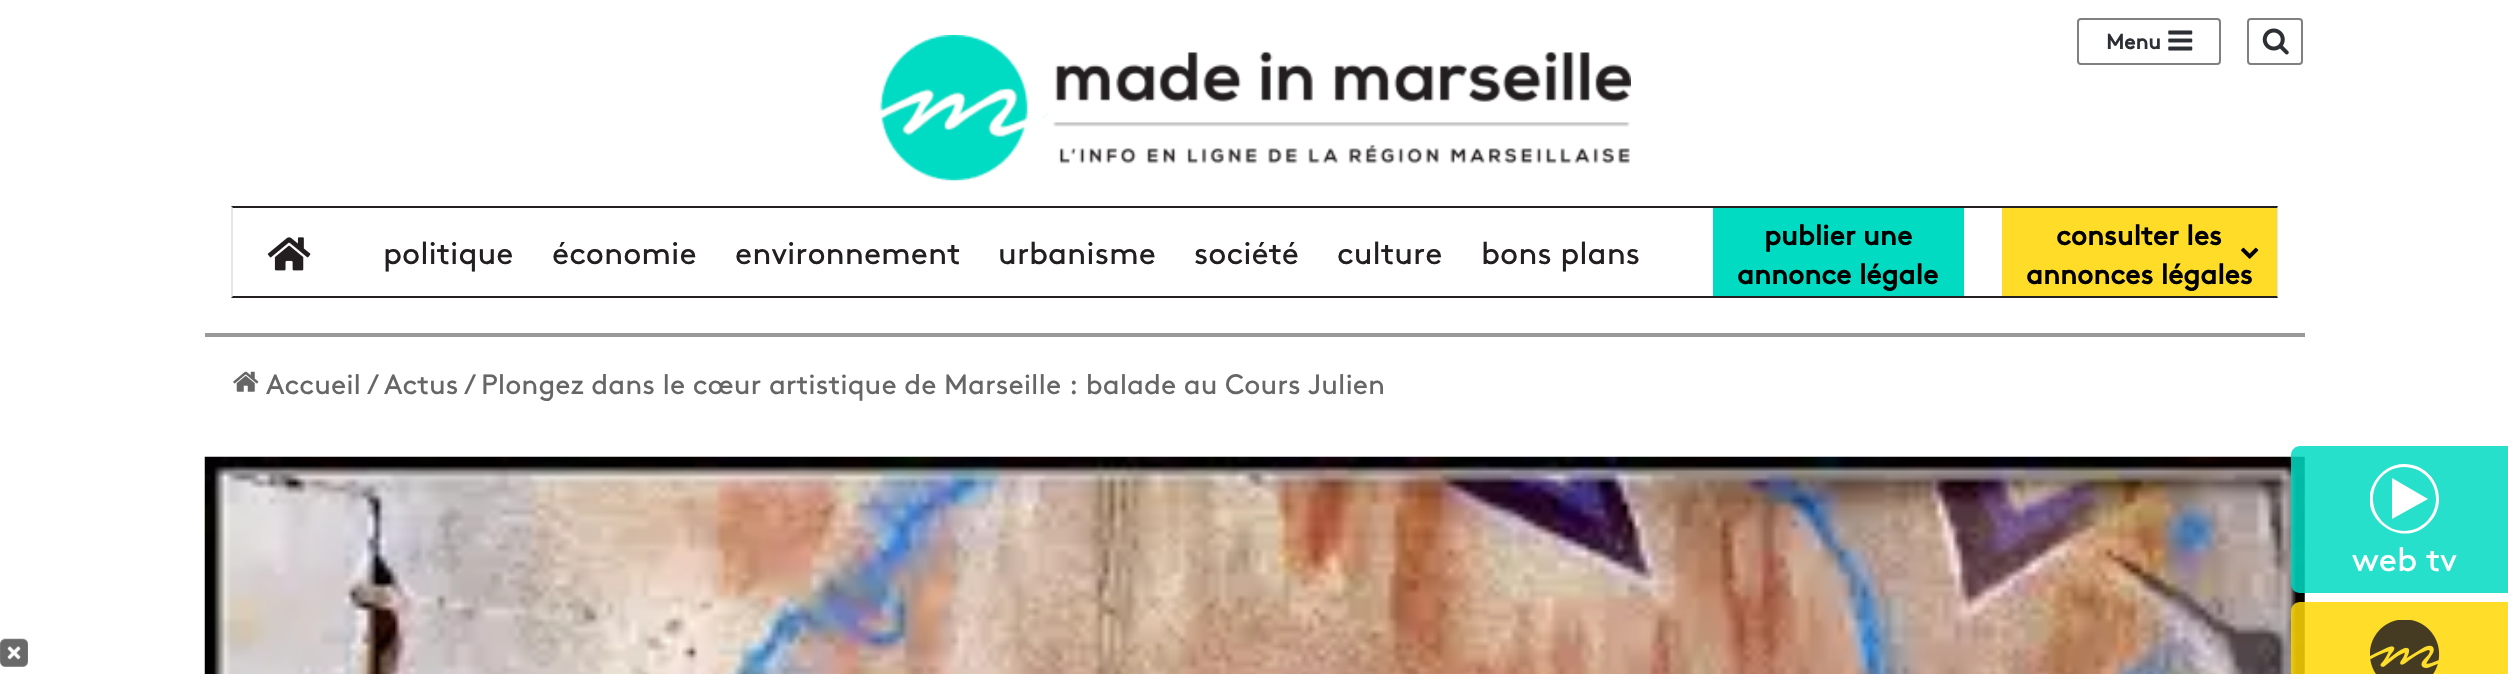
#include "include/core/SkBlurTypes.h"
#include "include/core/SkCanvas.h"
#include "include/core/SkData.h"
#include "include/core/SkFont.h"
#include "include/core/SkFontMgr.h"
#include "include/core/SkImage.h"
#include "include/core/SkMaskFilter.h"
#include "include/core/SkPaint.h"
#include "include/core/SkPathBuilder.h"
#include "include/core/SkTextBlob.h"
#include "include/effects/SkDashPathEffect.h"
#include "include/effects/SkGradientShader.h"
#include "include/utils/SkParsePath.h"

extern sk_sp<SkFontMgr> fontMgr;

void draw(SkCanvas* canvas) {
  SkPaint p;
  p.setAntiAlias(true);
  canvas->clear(SK_ColorWHITE);
  canvas->drawImageRect(SkImages::DeferredFromEncodedData(SkData::MakeFromFileName("images/1.png")), SkRect::MakeLTRB(878, 35, 1631, 181), SkSamplingOptions());
  p.setStyle(SkPaint::kStroke_Style);
  p.setStrokeWidth(2);
  p.setColor(SkColorSetRGB(128, 128, 128));
  canvas->drawRoundRect(SkRect::MakeLTRB(2078, 19, 2220, 64), 3, 3, p);
  canvas->drawImageRect(SkImages::DeferredFromEncodedData(SkData::MakeFromFileName("images/2.png")), SkRect::MakeLTRB(2168, 30, 2193, 51), SkSamplingOptions());
  canvas->drawRoundRect(SkRect::MakeLTRB(2248, 19, 2302, 64), 3, 3, p);
  canvas->drawImageRect(SkImages::DeferredFromEncodedData(SkData::MakeFromFileName("images/3.png")), SkRect::MakeLTRB(2262, 28, 2289, 55), SkSamplingOptions());
  p.setStyle(SkPaint::kFill_Style);
  p.setColor(SkColorSetRGB(35, 31, 32));
  canvas->drawPath(SkPathBuilder().moveTo(231, 206).lineTo(2278, 206).lineTo(2277, 208).lineTo(233, 208).close().detach(), p);
  p.setColor(SkColorSetARGB(26, 0, 0, 0));
  canvas->drawPath(SkPathBuilder().moveTo(2278, 206).lineTo(2278, 298).lineTo(2277, 296).lineTo(2277, 208).close().detach(), p);
  p.setColor(SkColorSetRGB(35, 31, 32));
  canvas->drawPath(SkPathBuilder().moveTo(2278, 298).lineTo(231, 298).lineTo(233, 296).lineTo(2277, 296).close().detach(), p);
  p.setColor(SkColorSetARGB(26, 0, 0, 0));
  canvas->drawPath(SkPathBuilder().moveTo(231, 298).lineTo(231, 206).lineTo(233, 208).lineTo(233, 296).close().detach(), p);
  canvas->drawImageRect(SkImages::DeferredFromEncodedData(SkData::MakeFromFileName("images/4.png")), SkRect::MakeLTRB(267, 237, 311, 271), SkSamplingOptions());
  p.setColor(SkColorSetRGB(0, 219, 194));
  canvas->drawRect(SkRect::MakeLTRB(1713, 208, 1964, 296), p);
  p.setColor(SkColorSetRGB(255, 220, 40));
  canvas->drawRect(SkRect::MakeLTRB(2002, 208, 2277, 296), p);
  canvas->drawImageRect(SkImages::DeferredFromEncodedData(SkData::MakeFromFileName("images/5.png")), SkRect::MakeLTRB(2241, 247, 2259, 259), SkSamplingOptions());
  canvas->drawImageRect(SkImages::DeferredFromEncodedData(SkData::MakeFromFileName("images/8.png")), SkRect::MakeLTRB(204, 456, 2305, 674), SkSamplingOptions());
  p.setColor(SkColorSetARGB(217, 0, 219, 194));
  canvas->drawPath(SkPathBuilder().moveTo(2300, 446).lineTo(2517, 446).lineTo(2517, 593).lineTo(2300, 593).cubicTo(2295, 593, 2291, 589, 2291, 584).lineTo(2291, 455).cubicTo(2291, 450, 2295, 446, 2300, 446).close().detach(), p);
  canvas->save();
  canvas->clipRect(SkRect::MakeLTRB(2370, 464, 2440, 534));
  p.setColor(SK_ColorWHITE);
  canvas->drawPath(SkPathBuilder().moveTo(2404, 467).cubicTo(2422, 467, 2436, 481, 2436, 499).cubicTo(2436, 516, 2422, 531, 2404, 531).cubicTo(2387, 531, 2373, 516, 2373, 499).cubicTo(2373, 481, 2387, 467, 2404, 467).moveTo(2404, 464).cubicTo(2392, 464, 2381, 471, 2375, 481).cubicTo(2353, 516, 2402, 553, 2430, 522).cubicTo(2436, 516, 2439, 507, 2439, 499).cubicTo(2439, 480, 2424, 464, 2404, 464).close().detach(), p);
  canvas->restore();
  canvas->drawPath(SkPathBuilder().moveTo(2428, 499).lineTo(2392, 478).lineTo(2392, 519).close().detach(), p);
  p.setColor(SkColorSetARGB(217, 255, 215, 3));
  canvas->drawPath(SkPathBuilder().moveTo(2300, 602).lineTo(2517, 602).lineTo(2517, 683).lineTo(2300, 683).cubicTo(2295, 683, 2291, 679, 2291, 674).lineTo(2291, 611).cubicTo(2291, 606, 2295, 602, 2300, 602).close().detach(), p);
  canvas->drawImageRect(SkImages::DeferredFromEncodedData(SkData::MakeFromFileName("images/6.png")), SkRect::MakeLTRB(2370, 620, 2440, 674), SkSamplingOptions());
  p.setColor(SkColorSetRGB(153, 153, 153));
  canvas->drawRect(SkRect::MakeLTRB(205, 333, 2305, 337), p);
  canvas->drawImageRect(SkImages::DeferredFromEncodedData(SkData::MakeFromFileName("images/7.png")), SkRect::MakeLTRB(233, 371, 259, 392), SkSamplingOptions());
  canvas->drawImageRect(SkImages::DeferredFromEncodedData(SkData::MakeFromFileName("images/9.png")), SkRect::MakeLTRB(0, 638, 28, 667), SkSamplingOptions());
  SkFont font1(fontMgr->matchFamilyStyle("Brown", SkFontStyle::Bold()), 21);
  font1.setSubpixel(true);
  p.setColor(SkColorSetRGB(44, 47, 52));
  canvas->drawString("Menu", 2106, 49, font1, p);
  SkFont font2(fontMgr->matchFamilyStyle("Brown", SkFontStyle::Normal()), 31.5f);
  font2.setSubpixel(true);
  p.setColor(SkColorSetRGB(35, 31, 32));
  canvas->drawString("politique", 383, 264, font2, p);
  canvas->drawString("économie", 552, 264, font2, p);
  canvas->drawString("environnement", 735, 264, font2, p);
  canvas->drawString("urbanisme", 998, 264, font2, p);
  canvas->drawString("société", 1194, 264, font2, p);
  canvas->drawString("culture", 1337, 264, font2, p);
  canvas->drawString("bons plans", 1481, 264, font2, p);
  SkFont font3(fontMgr->matchFamilyStyle("Brown", SkFontStyle::Bold()), 28);
  font3.setSubpixel(true);
  p.setColor(SK_ColorBLACK);
  canvas->drawString("publier une", 1764, 245, font3, p);
  canvas->drawString("annonce légale", 1737, 284, font3, p);
  canvas->drawString("consulter les", 2056, 245, font3, p);
  canvas->drawString("annonces légales", 2026, 284, font3, p);
  SkFont font4(fontMgr->matchFamilyStyle("Brown", SkFontStyle::Normal()), 33.5f);
  font4.setSubpixel(true);
  p.setColor(SK_ColorWHITE);
  canvas->drawString("web tv", 2352, 571, font4, p);
  SkFont font5(fontMgr->matchFamilyStyle("Brown", SkFontStyle::Normal()), 28);
  font5.setSubpixel(true);
  p.setColor(SkColorSetRGB(102, 102, 102));
  canvas->drawString("Accueil", 266, 394, font5, p);
  canvas->drawString("/", 367, 394, font5, p);
  canvas->drawString("Actus", 384, 394, font5, p);
  canvas->drawString("/", 464, 394, font5, p);
  canvas->drawString("Plongez dans le cœur artistique de Marseille : balade au Cours Julien", 481, 394, font5, p);
}
